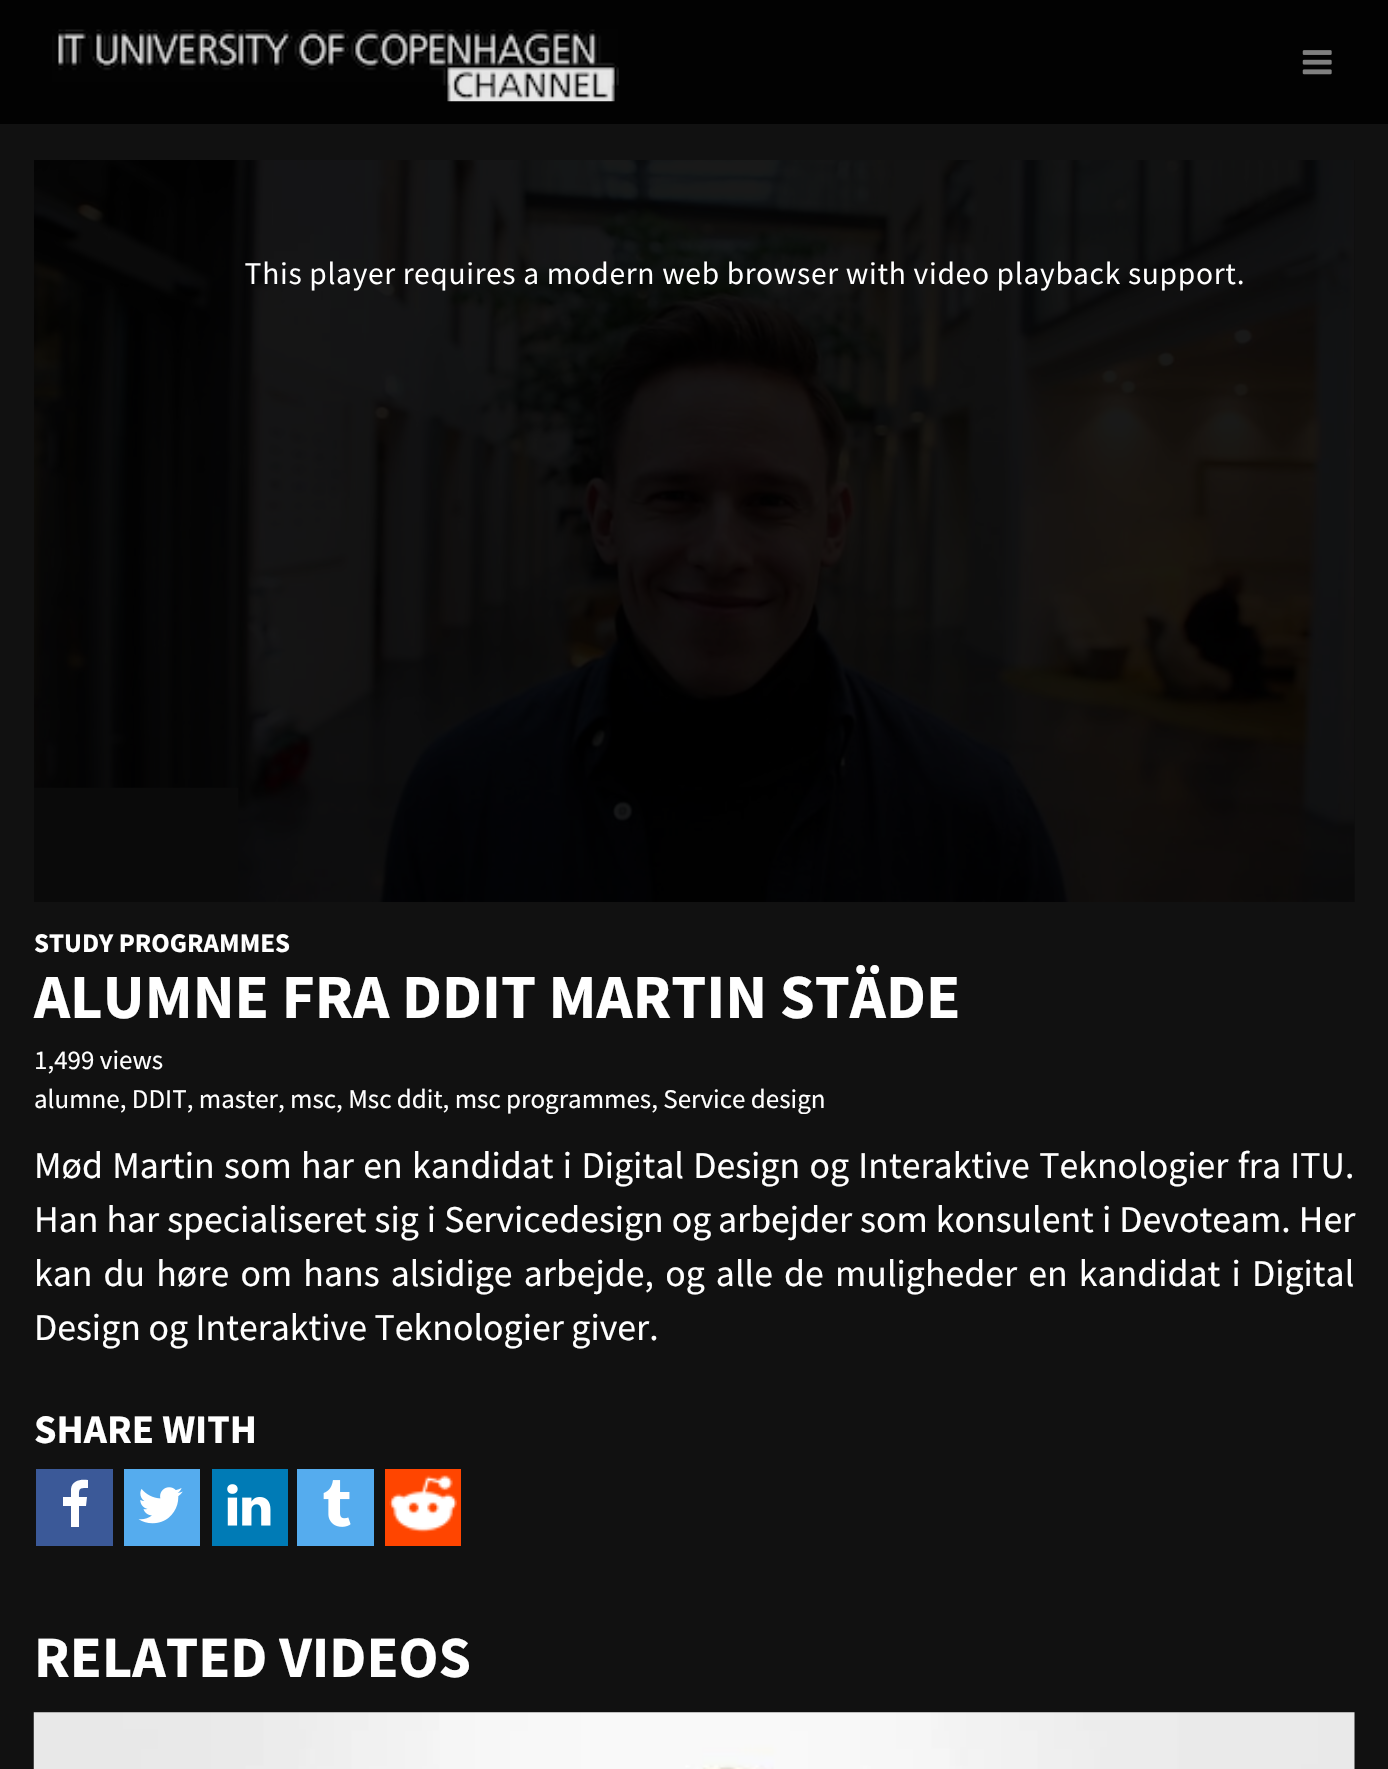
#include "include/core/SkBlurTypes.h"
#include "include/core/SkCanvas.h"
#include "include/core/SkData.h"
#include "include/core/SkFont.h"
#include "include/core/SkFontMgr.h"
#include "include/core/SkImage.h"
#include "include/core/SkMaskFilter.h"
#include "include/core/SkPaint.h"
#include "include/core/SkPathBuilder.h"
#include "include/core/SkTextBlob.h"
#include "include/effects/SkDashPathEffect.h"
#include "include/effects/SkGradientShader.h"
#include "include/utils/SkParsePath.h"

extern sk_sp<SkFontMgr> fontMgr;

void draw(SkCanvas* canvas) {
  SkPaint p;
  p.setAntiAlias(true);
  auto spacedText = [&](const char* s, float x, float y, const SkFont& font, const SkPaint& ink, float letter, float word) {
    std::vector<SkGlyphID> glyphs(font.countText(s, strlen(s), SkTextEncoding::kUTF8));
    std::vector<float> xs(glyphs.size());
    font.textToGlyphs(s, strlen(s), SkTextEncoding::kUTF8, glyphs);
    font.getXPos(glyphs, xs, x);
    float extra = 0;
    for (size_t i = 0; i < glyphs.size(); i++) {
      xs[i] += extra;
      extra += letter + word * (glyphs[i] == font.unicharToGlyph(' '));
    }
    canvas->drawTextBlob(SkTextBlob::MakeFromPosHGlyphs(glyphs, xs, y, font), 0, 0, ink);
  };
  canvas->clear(SkColorSetRGB(17, 17, 17));
  p.setColor(SkColorSetRGB(2, 2, 2));
  canvas->drawRect(SkRect::MakeLTRB(0, 0, 1388, 124), p);
  canvas->drawImageRect(SkImages::DeferredFromEncodedData(SkData::MakeFromFileName("images/1.png")), SkRect::MakeLTRB(52, 29, 619, 102), SkSamplingOptions());
  canvas->drawImageRect(SkImages::DeferredFromEncodedData(SkData::MakeFromFileName("images/2.png")), SkRect::MakeLTRB(1302, 50, 1332, 75), SkSamplingOptions());
  canvas->drawImageRect(SkImages::DeferredFromEncodedData(SkData::MakeFromFileName("images/3.png")), SkRect::MakeLTRB(34, 160, 1355, 902), SkSamplingOptions());
  p.setColor(SkColorSetRGB(59, 89, 152));
  canvas->drawRect(SkRect::MakeLTRB(36, 1469, 113, 1546), p);
  p.setColor(SK_ColorWHITE);
  canvas->drawPath(SkPathBuilder().moveTo(88, 1480).lineTo(88, 1488).cubicTo(79, 1488, 79, 1488, 79, 1497).lineTo(87, 1497).lineTo(86, 1506).lineTo(79, 1506).lineTo(79, 1527).lineTo(71, 1527).lineTo(71, 1506).lineTo(63, 1506).lineTo(63, 1497).lineTo(71, 1497).lineTo(71, 1489).cubicTo(72, 1480, 81, 1479, 88, 1480).close().detach(), p);
  p.setColor(SkColorSetRGB(85, 172, 238));
  canvas->drawRect(SkRect::MakeLTRB(124, 1469, 200, 1546), p);
  canvas->drawImageRect(SkImages::DeferredFromEncodedData(SkData::MakeFromFileName("images/4.png")), SkRect::MakeLTRB(138, 1487, 183, 1524), SkSamplingOptions());
  p.setColor(SkColorSetRGB(0, 123, 182));
  canvas->drawRect(SkRect::MakeLTRB(212, 1469, 288, 1546), p);
  canvas->drawImageRect(SkImages::DeferredFromEncodedData(SkData::MakeFromFileName("images/5.png")), SkRect::MakeLTRB(227, 1484, 271, 1526), SkSamplingOptions());
  p.setColor(SkColorSetRGB(85, 172, 238));
  canvas->drawRect(SkRect::MakeLTRB(297, 1469, 374, 1546), p);
  canvas->drawImageRect(SkImages::DeferredFromEncodedData(SkData::MakeFromFileName("images/6.png")), SkRect::MakeLTRB(323, 1480, 351, 1527), SkSamplingOptions());
  p.setColor(SkColorSetRGB(255, 69, 0));
  canvas->drawRect(SkRect::MakeLTRB(385, 1469, 461, 1546), p);
  canvas->drawImageRect(SkImages::DeferredFromEncodedData(SkData::MakeFromFileName("images/7.png")), SkRect::MakeLTRB(389, 1475, 457, 1533), SkSamplingOptions());
  canvas->drawImageRect(SkImages::DeferredFromEncodedData(SkData::MakeFromFileName("images/8.png")), SkRect::MakeLTRB(33, 1712, 1355, 1769), SkSamplingOptions());
  SkFont font1(fontMgr->matchFamilyStyle("Source Sans Pro", SkFontStyle::Bold()), 27);
  font1.setSubpixel(true);
  p.setColor(SK_ColorWHITE);
  canvas->drawString("STUDY PROGRAMMES", 34, 952, font1, p);
  SkFont font2(fontMgr->matchFamilyStyle("Source Sans Pro", SkFontStyle::Bold()), 63);
  font2.setSubpixel(true);
  canvas->drawString("ALUMNE FRA DDIT MARTIN STÄDE", 34, 1018, font2, p);
  SkFont font3(fontMgr->matchFamilyStyle("Source Sans Pro", SkFontStyle::Normal()), 27);
  font3.setSubpixel(true);
  canvas->drawString("1,499 views", 34, 1069, font3, p);
  canvas->drawString("alumne, DDIT, master, msc, Msc ddit, msc programmes, Service design", 34, 1108, font3, p);
  SkFont font4(fontMgr->matchFamilyStyle("Source Sans Pro", SkFontStyle::Normal()), 37.8f);
  font4.setSubpixel(true);
  spacedText("Mød Martin som har en kandidat i Digital Design og Interaktive Teknologier fra ITU.", 34, 1178, font4, p, 0, 1.8f);
  spacedText("Han har specialiseret sig i Servicedesign og", 34, 1232, font4, p, 0, 0.5f);
  spacedText("arbejder som konsulent i Devoteam. Her", 718, 1232, font4, p, 0, 0.5f);
  spacedText("kan du høre om hans alsidige arbejde, og alle de muligheder en kandidat i Digital", 34, 1286, font4, p, 0, 3.6f);
  canvas->drawString("Design og Interaktive Teknologier giver.", 34, 1340, font4, p);
  SkFont font5(fontMgr->matchFamilyStyle("Source Sans Pro", SkFontStyle::Bold()), 40.5f);
  font5.setSubpixel(true);
  canvas->drawString("SHARE WITH", 34, 1443, font5, p);
  SkFont font6(fontMgr->matchFamilyStyle("Source Sans Pro", SkFontStyle::Bold()), 58.5f);
  font6.setSubpixel(true);
  canvas->drawString("RELATED VIDEOS", 34, 1677, font6, p);
}
